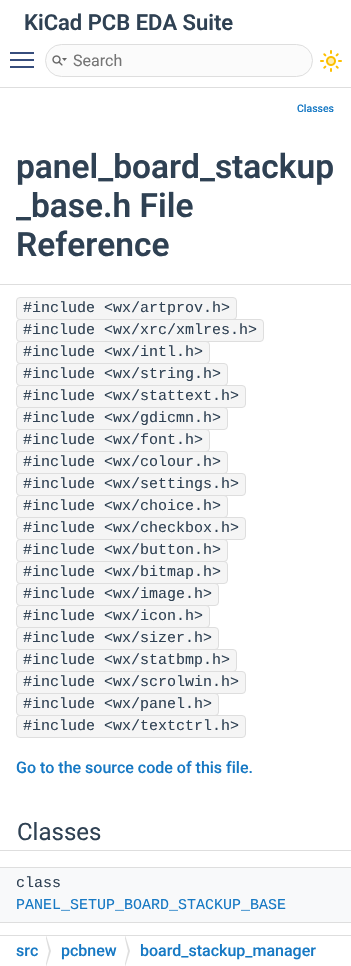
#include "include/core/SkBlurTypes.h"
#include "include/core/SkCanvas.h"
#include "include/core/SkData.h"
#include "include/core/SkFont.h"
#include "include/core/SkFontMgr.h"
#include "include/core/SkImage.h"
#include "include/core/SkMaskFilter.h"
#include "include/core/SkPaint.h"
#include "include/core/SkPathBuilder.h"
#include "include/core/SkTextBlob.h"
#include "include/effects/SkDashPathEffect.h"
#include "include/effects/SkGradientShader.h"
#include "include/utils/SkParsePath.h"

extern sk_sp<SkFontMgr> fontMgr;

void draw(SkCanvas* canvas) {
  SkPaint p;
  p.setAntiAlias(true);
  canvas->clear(SK_ColorWHITE);
  p.setColor(SkColorSetRGB(222, 222, 222));
  canvas->drawRect(SkRect::MakeLTRB(0, 87, 351, 88), p);
  p.setColor(SkColorSetRGB(54, 77, 124));
  canvas->drawRect(SkRect::MakeLTRB(10, 59, 34, 61), p);
  canvas->drawRect(SkRect::MakeLTRB(10, 52, 34, 54), p);
  canvas->drawRect(SkRect::MakeLTRB(10, 66, 34, 68), p);
  p.setColor(SkColorSetRGB(251, 251, 251));
  canvas->drawRoundRect(SkRect::MakeLTRB(45.5f, 44.5f, 312.5f, 76.5f), 16, 16, p);
  p.setStyle(SkPaint::kStroke_Style);
  p.setStrokeWidth(1);
  p.setColor(SkColorSetRGB(222, 222, 222));
  canvas->drawRoundRect(SkRect::MakeLTRB(45.5f, 44.5f, 312.5f, 76.5f), 16, 16, p);
  canvas->drawImageRect(SkImages::DeferredFromEncodedData(SkData::MakeFromFileName("images/1.png")), SkRect::MakeLTRB(52, 55, 67, 66), SkSamplingOptions());
  canvas->drawImageRect(SkImages::DeferredFromEncodedData(SkData::MakeFromFileName("images/2.png")), SkRect::MakeLTRB(320, 50, 342, 72), SkSamplingOptions());
  p.setStyle(SkPaint::kFill_Style);
  canvas->drawRect(SkRect::MakeLTRB(0, 284, 351, 285), p);
  p.setColor(SkColorSetRGB(245, 245, 245));
  canvas->drawRoundRect(SkRect::MakeLTRB(16.5f, 297.5f, 236.5f, 319.5f), 3.5f, 3.5f, p);
  p.setStyle(SkPaint::kStroke_Style);
  p.setColor(SkColorSetRGB(222, 222, 222));
  canvas->drawRoundRect(SkRect::MakeLTRB(16.5f, 297.5f, 236.5f, 319.5f), 3.5f, 3.5f, p);
  p.setStyle(SkPaint::kFill_Style);
  p.setColor(SkColorSetRGB(245, 245, 245));
  canvas->drawRoundRect(SkRect::MakeLTRB(16.5f, 319.5f, 263.5f, 341.5f), 3.5f, 3.5f, p);
  p.setStyle(SkPaint::kStroke_Style);
  p.setColor(SkColorSetRGB(222, 222, 222));
  canvas->drawRoundRect(SkRect::MakeLTRB(16.5f, 319.5f, 263.5f, 341.5f), 3.5f, 3.5f, p);
  p.setStyle(SkPaint::kFill_Style);
  p.setColor(SkColorSetRGB(245, 245, 245));
  canvas->drawRoundRect(SkRect::MakeLTRB(16.5f, 341.5f, 209.5f, 363.5f), 3.5f, 3.5f, p);
  p.setStyle(SkPaint::kStroke_Style);
  p.setColor(SkColorSetRGB(222, 222, 222));
  canvas->drawRoundRect(SkRect::MakeLTRB(16.5f, 341.5f, 209.5f, 363.5f), 3.5f, 3.5f, p);
  p.setStyle(SkPaint::kFill_Style);
  p.setColor(SkColorSetRGB(245, 245, 245));
  canvas->drawRoundRect(SkRect::MakeLTRB(16.5f, 363.5f, 227.5f, 385.5f), 3.5f, 3.5f, p);
  p.setStyle(SkPaint::kStroke_Style);
  p.setColor(SkColorSetRGB(222, 222, 222));
  canvas->drawRoundRect(SkRect::MakeLTRB(16.5f, 363.5f, 227.5f, 385.5f), 3.5f, 3.5f, p);
  p.setStyle(SkPaint::kFill_Style);
  p.setColor(SkColorSetRGB(245, 245, 245));
  canvas->drawRoundRect(SkRect::MakeLTRB(16.5f, 385.5f, 245.5f, 407.5f), 3.5f, 3.5f, p);
  p.setStyle(SkPaint::kStroke_Style);
  p.setColor(SkColorSetRGB(222, 222, 222));
  canvas->drawRoundRect(SkRect::MakeLTRB(16.5f, 385.5f, 245.5f, 407.5f), 3.5f, 3.5f, p);
  p.setStyle(SkPaint::kFill_Style);
  p.setColor(SkColorSetRGB(245, 245, 245));
  canvas->drawRoundRect(SkRect::MakeLTRB(16.5f, 407.5f, 227.5f, 429.5f), 3.5f, 3.5f, p);
  p.setStyle(SkPaint::kStroke_Style);
  p.setColor(SkColorSetRGB(222, 222, 222));
  canvas->drawRoundRect(SkRect::MakeLTRB(16.5f, 407.5f, 227.5f, 429.5f), 3.5f, 3.5f, p);
  p.setStyle(SkPaint::kFill_Style);
  p.setColor(SkColorSetRGB(245, 245, 245));
  canvas->drawRoundRect(SkRect::MakeLTRB(16.5f, 429.5f, 209.5f, 451.5f), 3.5f, 3.5f, p);
  p.setStyle(SkPaint::kStroke_Style);
  p.setColor(SkColorSetRGB(222, 222, 222));
  canvas->drawRoundRect(SkRect::MakeLTRB(16.5f, 429.5f, 209.5f, 451.5f), 3.5f, 3.5f, p);
  p.setStyle(SkPaint::kFill_Style);
  p.setColor(SkColorSetRGB(245, 245, 245));
  canvas->drawRoundRect(SkRect::MakeLTRB(16.5f, 451.5f, 227.5f, 473.5f), 3.5f, 3.5f, p);
  p.setStyle(SkPaint::kStroke_Style);
  p.setColor(SkColorSetRGB(222, 222, 222));
  canvas->drawRoundRect(SkRect::MakeLTRB(16.5f, 451.5f, 227.5f, 473.5f), 3.5f, 3.5f, p);
  p.setStyle(SkPaint::kFill_Style);
  p.setColor(SkColorSetRGB(245, 245, 245));
  canvas->drawRoundRect(SkRect::MakeLTRB(16.5f, 473.5f, 245.5f, 495.5f), 3.5f, 3.5f, p);
  p.setStyle(SkPaint::kStroke_Style);
  p.setColor(SkColorSetRGB(222, 222, 222));
  canvas->drawRoundRect(SkRect::MakeLTRB(16.5f, 473.5f, 245.5f, 495.5f), 3.5f, 3.5f, p);
  p.setStyle(SkPaint::kFill_Style);
  p.setColor(SkColorSetRGB(245, 245, 245));
  canvas->drawRoundRect(SkRect::MakeLTRB(16.5f, 495.5f, 227.5f, 517.5f), 3.5f, 3.5f, p);
  p.setStyle(SkPaint::kStroke_Style);
  p.setColor(SkColorSetRGB(222, 222, 222));
  canvas->drawRoundRect(SkRect::MakeLTRB(16.5f, 495.5f, 227.5f, 517.5f), 3.5f, 3.5f, p);
  p.setStyle(SkPaint::kFill_Style);
  p.setColor(SkColorSetRGB(245, 245, 245));
  canvas->drawRoundRect(SkRect::MakeLTRB(16.5f, 517.5f, 245.5f, 539.5f), 3.5f, 3.5f, p);
  p.setStyle(SkPaint::kStroke_Style);
  p.setColor(SkColorSetRGB(222, 222, 222));
  canvas->drawRoundRect(SkRect::MakeLTRB(16.5f, 517.5f, 245.5f, 539.5f), 3.5f, 3.5f, p);
  p.setStyle(SkPaint::kFill_Style);
  p.setColor(SkColorSetRGB(245, 245, 245));
  canvas->drawRoundRect(SkRect::MakeLTRB(16.5f, 539.5f, 227.5f, 561.5f), 3.5f, 3.5f, p);
  p.setStyle(SkPaint::kStroke_Style);
  p.setColor(SkColorSetRGB(222, 222, 222));
  canvas->drawRoundRect(SkRect::MakeLTRB(16.5f, 539.5f, 227.5f, 561.5f), 3.5f, 3.5f, p);
  p.setStyle(SkPaint::kFill_Style);
  p.setColor(SkColorSetRGB(245, 245, 245));
  canvas->drawRoundRect(SkRect::MakeLTRB(16.5f, 561.5f, 227.5f, 583.5f), 3.5f, 3.5f, p);
  p.setStyle(SkPaint::kStroke_Style);
  p.setColor(SkColorSetRGB(222, 222, 222));
  canvas->drawRoundRect(SkRect::MakeLTRB(16.5f, 561.5f, 227.5f, 583.5f), 3.5f, 3.5f, p);
  p.setStyle(SkPaint::kFill_Style);
  p.setColor(SkColorSetRGB(245, 245, 245));
  canvas->drawRoundRect(SkRect::MakeLTRB(16.5f, 583.5f, 218.5f, 605.5f), 3.5f, 3.5f, p);
  p.setStyle(SkPaint::kStroke_Style);
  p.setColor(SkColorSetRGB(222, 222, 222));
  canvas->drawRoundRect(SkRect::MakeLTRB(16.5f, 583.5f, 218.5f, 605.5f), 3.5f, 3.5f, p);
  p.setStyle(SkPaint::kFill_Style);
  p.setColor(SkColorSetRGB(245, 245, 245));
  canvas->drawRoundRect(SkRect::MakeLTRB(16.5f, 605.5f, 209.5f, 627.5f), 3.5f, 3.5f, p);
  p.setStyle(SkPaint::kStroke_Style);
  p.setColor(SkColorSetRGB(222, 222, 222));
  canvas->drawRoundRect(SkRect::MakeLTRB(16.5f, 605.5f, 209.5f, 627.5f), 3.5f, 3.5f, p);
  p.setStyle(SkPaint::kFill_Style);
  p.setColor(SkColorSetRGB(245, 245, 245));
  canvas->drawRoundRect(SkRect::MakeLTRB(16.5f, 627.5f, 218.5f, 649.5f), 3.5f, 3.5f, p);
  p.setStyle(SkPaint::kStroke_Style);
  p.setColor(SkColorSetRGB(222, 222, 222));
  canvas->drawRoundRect(SkRect::MakeLTRB(16.5f, 627.5f, 218.5f, 649.5f), 3.5f, 3.5f, p);
  p.setStyle(SkPaint::kFill_Style);
  p.setColor(SkColorSetRGB(245, 245, 245));
  canvas->drawRoundRect(SkRect::MakeLTRB(16.5f, 649.5f, 236.5f, 671.5f), 3.5f, 3.5f, p);
  p.setStyle(SkPaint::kStroke_Style);
  p.setColor(SkColorSetRGB(222, 222, 222));
  canvas->drawRoundRect(SkRect::MakeLTRB(16.5f, 649.5f, 236.5f, 671.5f), 3.5f, 3.5f, p);
  p.setStyle(SkPaint::kFill_Style);
  p.setColor(SkColorSetRGB(245, 245, 245));
  canvas->drawRoundRect(SkRect::MakeLTRB(16.5f, 671.5f, 245.5f, 693.5f), 3.5f, 3.5f, p);
  p.setStyle(SkPaint::kStroke_Style);
  p.setColor(SkColorSetRGB(222, 222, 222));
  canvas->drawRoundRect(SkRect::MakeLTRB(16.5f, 671.5f, 245.5f, 693.5f), 3.5f, 3.5f, p);
  p.setStyle(SkPaint::kFill_Style);
  p.setColor(SkColorSetRGB(245, 245, 245));
  canvas->drawRoundRect(SkRect::MakeLTRB(16.5f, 693.5f, 218.5f, 715.5f), 3.5f, 3.5f, p);
  p.setStyle(SkPaint::kStroke_Style);
  p.setColor(SkColorSetRGB(222, 222, 222));
  canvas->drawRoundRect(SkRect::MakeLTRB(16.5f, 693.5f, 218.5f, 715.5f), 3.5f, 3.5f, p);
  p.setStyle(SkPaint::kFill_Style);
  p.setColor(SkColorSetRGB(245, 245, 245));
  canvas->drawRoundRect(SkRect::MakeLTRB(16.5f, 715.5f, 245.5f, 737.5f), 3.5f, 3.5f, p);
  p.setStyle(SkPaint::kStroke_Style);
  p.setColor(SkColorSetRGB(222, 222, 222));
  canvas->drawRoundRect(SkRect::MakeLTRB(16.5f, 715.5f, 245.5f, 737.5f), 3.5f, 3.5f, p);
  p.setStyle(SkPaint::kFill_Style);
  canvas->drawPath(SkPathBuilder().moveTo(-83, 811).lineTo(-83, 851).lineTo(234, 851).lineTo(234, 850).lineTo(17, 850).lineTo(17, 811).close().detach(), p);
  canvas->drawPath(SkPathBuilder().moveTo(117, 850).lineTo(117, 851).lineTo(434, 851).lineTo(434, 811).lineTo(334, 811).lineTo(334, 850).close().detach(), p);
  p.setColor(SK_ColorWHITE);
  canvas->drawRect(SkRect::MakeLTRB(0, 811, 17, 850), p);
  canvas->drawRect(SkRect::MakeLTRB(334, 811, 351, 850), p);
  p.setColor(SkColorSetRGB(248, 249, 250));
  canvas->drawRect(SkRect::MakeLTRB(0, 868, 351, 922), p);
  p.setColor(SkColorSetRGB(222, 222, 222));
  canvas->drawRect(SkRect::MakeLTRB(0, 867, 351, 868), p);
  canvas->drawRect(SkRect::MakeLTRB(0, 922, 351, 923), p);
  canvas->drawRect(SkRect::MakeLTRB(0, 935, 351, 936), p);
  canvas->drawPath(SkPathBuilder().moveTo(46, 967).lineTo(46, 935).lineTo(51, 951).close().detach(), p);
  canvas->save();
  canvas->clipRect(SkRect::MakeLTRB(0, 936, 351, 966));
  p.setColor(SK_ColorWHITE);
  canvas->drawPath(SkPathBuilder().moveTo(44, 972).lineTo(44, 930).lineTo(49, 951).close().detach(), p);
  canvas->restore();
  p.setColor(SkColorSetRGB(222, 222, 222));
  canvas->drawPath(SkPathBuilder().moveTo(125, 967).lineTo(125, 935).lineTo(130, 951).close().detach(), p);
  canvas->save();
  canvas->clipRect(SkRect::MakeLTRB(0, 936, 351, 966));
  p.setColor(SK_ColorWHITE);
  canvas->drawPath(SkPathBuilder().moveTo(123, 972).lineTo(123, 930).lineTo(128, 951).close().detach(), p);
  canvas->restore();
  SkFont font1(fontMgr->matchFamilyStyle("Roboto", SkFontStyle(600, SkFontStyle::kNormal_Width, SkFontStyle::kUpright_Slant)), 22);
  font1.setSubpixel(true);
  p.setColor(SkColorSetRGB(47, 65, 83));
  canvas->drawString("KiCad PCB EDA Suite", 24, 30, font1, p);
  SkFont font2(fontMgr->matchFamilyStyle("Roboto", SkFontStyle::Normal()), 16);
  font2.setSubpixel(true);
  p.setColor(SkColorSetRGB(117, 117, 117));
  canvas->drawString("Search", 73, 66, font2, p);
  SkFont font3(fontMgr->matchFamilyStyle("Roboto", SkFontStyle(500, SkFontStyle::kNormal_Width, SkFontStyle::kUpright_Slant)), 10.5f);
  font3.setSubpixel(true);
  p.setColor(SkColorSetRGB(23, 121, 196));
  canvas->drawString("Classes", 297, 112, font3, p);
  SkFont font4(fontMgr->matchFamilyStyle("Roboto", SkFontStyle(600, SkFontStyle::kNormal_Width, SkFontStyle::kUpright_Slant)), 33.5f);
  font4.setSubpixel(true);
  p.setColor(SkColorSetRGB(47, 65, 83));
  canvas->drawString("panel_board_stackup", 16, 178, font4, p);
  canvas->drawString("_base.h File", 16, 217, font4, p);
  canvas->drawString("Reference", 16, 256, font4, p);
  SkFont font5(fontMgr->matchFamilyStyle("Liberation Mono", SkFontStyle::Normal()), 15);
  font5.setSubpixel(true);
  canvas->drawString("#include <wx/artprov.h>", 23, 312, font5, p);
  canvas->drawString("#include <wx/xrc/xmlres.h>", 23, 334, font5, p);
  canvas->drawString("#include <wx/intl.h>", 23, 356, font5, p);
  canvas->drawString("#include <wx/string.h>", 23, 378, font5, p);
  canvas->drawString("#include <wx/stattext.h>", 23, 400, font5, p);
  canvas->drawString("#include <wx/gdicmn.h>", 23, 422, font5, p);
  canvas->drawString("#include <wx/font.h>", 23, 444, font5, p);
  canvas->drawString("#include <wx/colour.h>", 23, 466, font5, p);
  canvas->drawString("#include <wx/settings.h>", 23, 488, font5, p);
  canvas->drawString("#include <wx/choice.h>", 23, 510, font5, p);
  canvas->drawString("#include <wx/checkbox.h>", 23, 532, font5, p);
  canvas->drawString("#include <wx/button.h>", 23, 554, font5, p);
  canvas->drawString("#include <wx/bitmap.h>", 23, 576, font5, p);
  canvas->drawString("#include <wx/image.h>", 23, 598, font5, p);
  canvas->drawString("#include <wx/icon.h>", 23, 620, font5, p);
  canvas->drawString("#include <wx/sizer.h>", 23, 642, font5, p);
  canvas->drawString("#include <wx/statbmp.h>", 23, 664, font5, p);
  canvas->drawString("#include <wx/scrolwin.h>", 23, 686, font5, p);
  canvas->drawString("#include <wx/panel.h>", 23, 708, font5, p);
  canvas->drawString("#include <wx/textctrl.h>", 23, 730, font5, p);
  SkFont font6(fontMgr->matchFamilyStyle("Roboto", SkFontStyle(500, SkFontStyle::kNormal_Width, SkFontStyle::kUpright_Slant)), 16);
  font6.setSubpixel(true);
  p.setColor(SkColorSetRGB(23, 121, 196));
  canvas->drawString("Go to the source code of this file.", 16, 773, font6, p);
  SkFont font7(fontMgr->matchFamilyStyle("Roboto", SkFontStyle::Normal()), 24);
  font7.setSubpixel(true);
  p.setColor(SkColorSetRGB(47, 65, 83));
  canvas->drawString("Classes", 17, 840, font7, p);
  canvas->drawString("class", 16, 887, font5, p);
  p.setColor(SkColorSetRGB(23, 121, 196));
  canvas->drawString("PANEL_SETUP_BOARD_STACKUP_BASE", 16, 909, font5, p);
  canvas->drawString("src", 16, 956, font6, p);
  canvas->drawString("pcbnew", 61, 956, font6, p);
  canvas->drawString("board_stackup_manager", 140, 956, font6, p);
}
